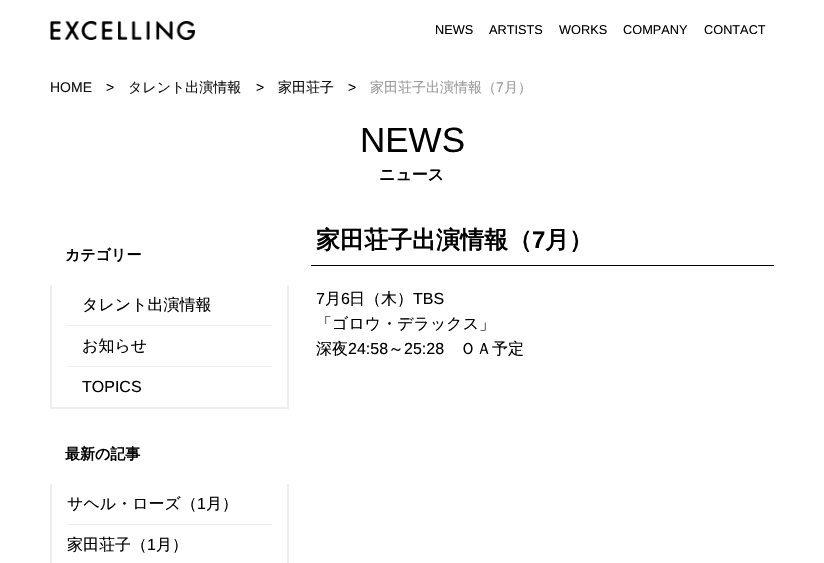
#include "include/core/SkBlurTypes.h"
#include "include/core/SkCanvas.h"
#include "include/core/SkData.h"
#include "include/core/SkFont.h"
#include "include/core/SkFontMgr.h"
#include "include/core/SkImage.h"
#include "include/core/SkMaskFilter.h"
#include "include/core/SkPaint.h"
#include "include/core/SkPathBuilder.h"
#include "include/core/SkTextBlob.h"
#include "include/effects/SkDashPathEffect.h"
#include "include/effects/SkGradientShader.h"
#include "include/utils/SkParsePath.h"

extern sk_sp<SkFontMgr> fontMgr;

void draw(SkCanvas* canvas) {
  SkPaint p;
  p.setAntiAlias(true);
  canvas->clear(SK_ColorWHITE);
  canvas->drawImageRect(SkImages::DeferredFromEncodedData(SkData::MakeFromFileName("images/1.png")), SkRect::MakeLTRB(50, 21, 195, 40), SkSamplingOptions());
  p.setColor(SkColorSetRGB(238, 238, 238));
  canvas->drawRect(SkRect::MakeLTRB(287, 285, 289, 409), p);
  canvas->drawRect(SkRect::MakeLTRB(50, 407, 289, 409), p);
  canvas->drawRect(SkRect::MakeLTRB(50, 285, 52, 409), p);
  canvas->drawRect(SkRect::MakeLTRB(67, 325, 272, 326), p);
  canvas->drawRect(SkRect::MakeLTRB(67, 366, 272, 367), p);
  canvas->drawRect(SkRect::MakeLTRB(287, 484, 289, 563), p);
  canvas->drawRect(SkRect::MakeLTRB(50, 484, 52, 563), p);
  canvas->drawRect(SkRect::MakeLTRB(67, 524, 272, 525), p);
  p.setColor(SK_ColorBLACK);
  canvas->drawRect(SkRect::MakeLTRB(311, 265, 774, 266), p);
  SkFont font1(fontMgr->matchFamilyStyle("Liberation Sans", SkFontStyle::Normal()), 12.75f);
  font1.setSubpixel(true);
  canvas->drawString("NEWS", 435, 34, font1, p);
  canvas->drawString("ARTISTS", 489, 34, font1, p);
  canvas->drawString("WORKS", 559, 34, font1, p);
  canvas->drawString("COMPANY", 623, 34, font1, p);
  canvas->drawString("CONTACT", 704, 34, font1, p);
  SkFont font2(fontMgr->matchFamilyStyle("Liberation Sans", SkFontStyle::Normal()), 14);
  font2.setSubpixel(true);
  p.setColor(SkColorSetRGB(17, 17, 17));
  canvas->drawString("HOME", 50, 92, font2, p);
  p.setColor(SK_ColorBLACK);
  canvas->drawString(">", 106, 92, font2, p);
  SkFont font3(fontMgr->matchFamilyStyle("WenQuanYi Zen Hei", SkFontStyle(500, SkFontStyle::kNormal_Width, SkFontStyle::kUpright_Slant)), 14);
  font3.setSubpixel(true);
  p.setColor(SkColorSetRGB(17, 17, 17));
  canvas->drawString("タレント出演情報", 128, 92, font3, p);
  p.setColor(SK_ColorBLACK);
  canvas->drawString(">", 256, 92, font2, p);
  p.setColor(SkColorSetRGB(17, 17, 17));
  canvas->drawString("家田荘子", 278, 92, font3, p);
  p.setColor(SK_ColorBLACK);
  canvas->drawString(">", 348, 92, font2, p);
  p.setColor(SkColorSetRGB(153, 153, 153));
  canvas->drawString("家田荘子出演情報（", 370, 92, font3, p);
  canvas->drawString("7", 496, 92, font2, p);
  canvas->drawString("月）", 504, 92, font3, p);
  SkFont font4(fontMgr->matchFamilyStyle("Liberation Sans", SkFontStyle::Normal()), 35);
  font4.setSubpixel(true);
  p.setColor(SK_ColorBLACK);
  canvas->drawString("NEWS", 360, 152, font4, p);
  SkFont font5(fontMgr->matchFamilyStyle("WenQuanYi Zen Hei", SkFontStyle::Bold()), 16);
  font5.setSubpixel(true);
  canvas->drawString("ニュース", 379, 180, font5, p);
  SkFont font6(fontMgr->matchFamilyStyle("WenQuanYi Zen Hei", SkFontStyle::Bold()), 15);
  font6.setSubpixel(true);
  canvas->drawString("カテゴリー", 65, 260, font6, p);
  SkFont font7(fontMgr->matchFamilyStyle("WenQuanYi Zen Hei", SkFontStyle(500, SkFontStyle::kNormal_Width, SkFontStyle::kUpright_Slant)), 16);
  font7.setSubpixel(true);
  canvas->drawString("タレント出演情報", 82, 310, font7, p);
  canvas->drawString("お知らせ", 82, 351, font7, p);
  SkFont font8(fontMgr->matchFamilyStyle("Liberation Sans", SkFontStyle::Normal()), 16);
  font8.setSubpixel(true);
  canvas->drawString("TOPICS", 82, 392, font8, p);
  canvas->drawString("最新の記事", 65, 459, font6, p);
  canvas->drawString("サヘル・ローズ（", 67, 509, font7, p);
  canvas->drawString("1", 197, 509, font8, p);
  canvas->drawString("月）", 206, 509, font7, p);
  canvas->drawString("家田荘子（", 67, 550, font7, p);
  canvas->drawString("1", 147, 550, font8, p);
  canvas->drawString("月）", 156, 550, font7, p);
  SkFont font9(fontMgr->matchFamilyStyle("WenQuanYi Zen Hei", SkFontStyle::Bold()), 24);
  font9.setSubpixel(true);
  canvas->drawString("家田荘子出演情報（", 316, 248, font9, p);
  SkFont font10(fontMgr->matchFamilyStyle("Liberation Sans", SkFontStyle::Bold()), 24);
  font10.setSubpixel(true);
  canvas->drawString("7", 532, 248, font10, p);
  canvas->drawString("月）", 545, 248, font9, p);
  canvas->drawString("7", 316, 304, font8, p);
  canvas->drawString("月", 325, 304, font7, p);
  canvas->drawString("6", 341, 304, font8, p);
  canvas->drawString("日（木）", 349, 304, font7, p);
  canvas->drawString("TBS", 413, 304, font8, p);
  canvas->drawString("「ゴロウ・デラックス」", 316, 329, font7, p);
  canvas->drawString("深夜", 316, 354, font7, p);
  canvas->drawString("24:58", 348, 354, font8, p);
  canvas->drawString("～", 388, 354, font7, p);
  canvas->drawString("25:28", 404, 354, font8, p);
  canvas->drawString("ＯＡ予定", 460, 354, font7, p);
}
